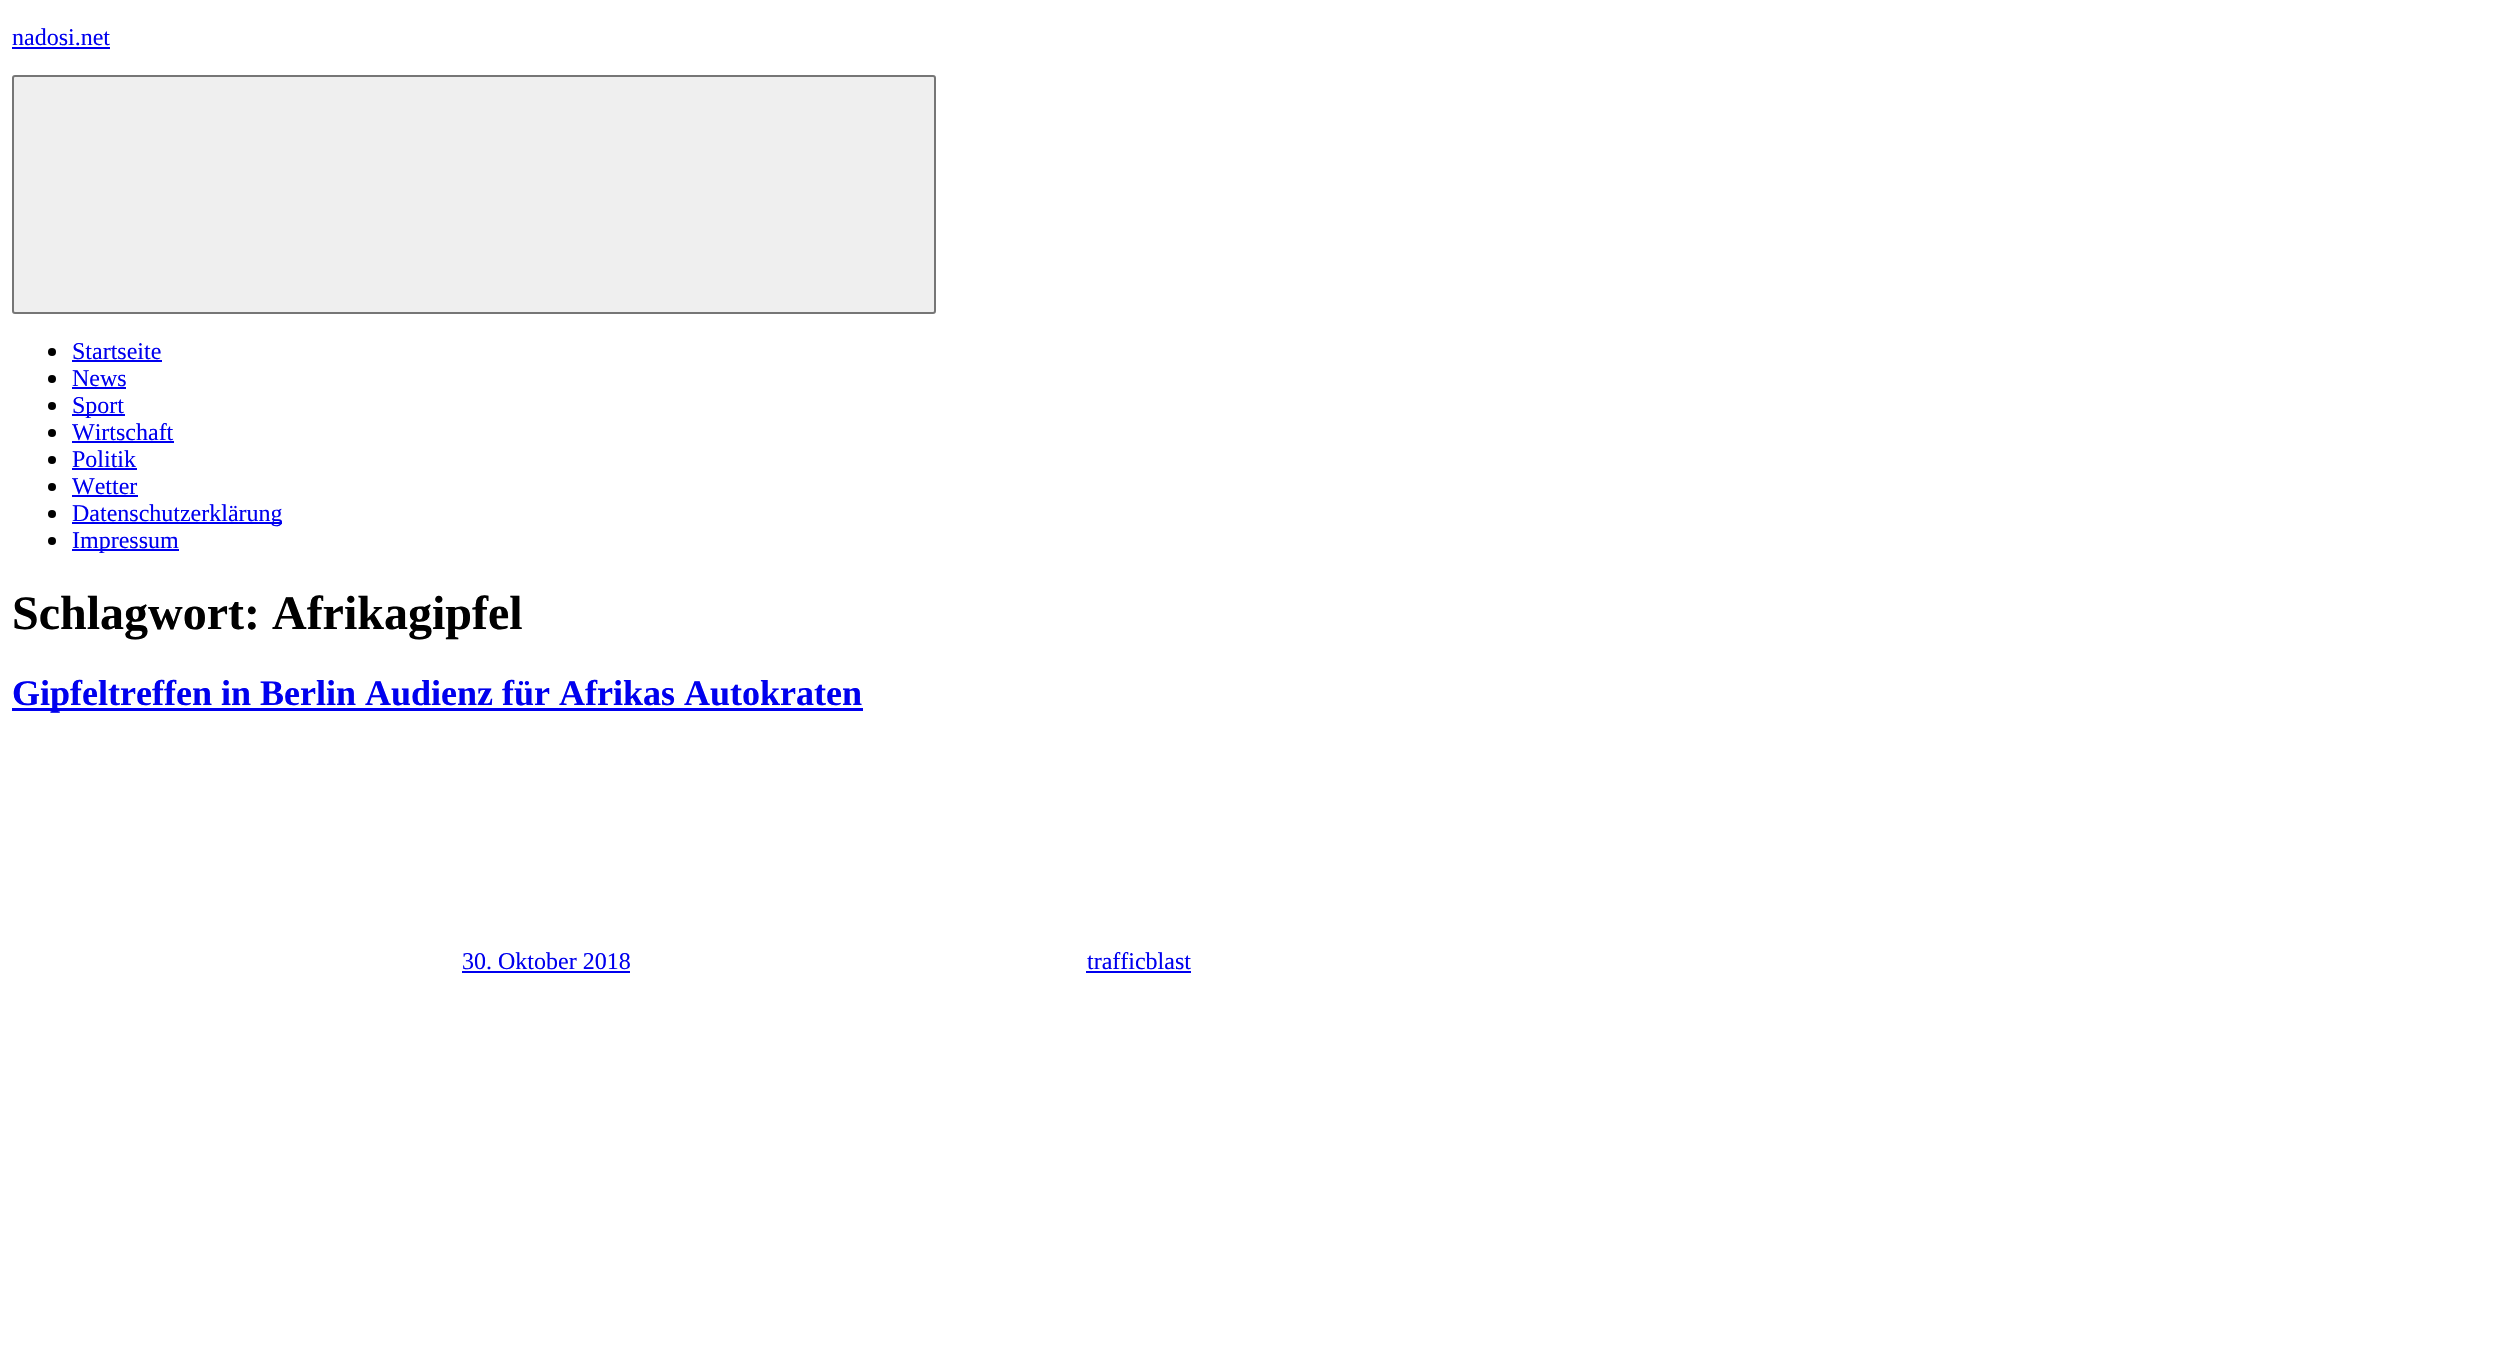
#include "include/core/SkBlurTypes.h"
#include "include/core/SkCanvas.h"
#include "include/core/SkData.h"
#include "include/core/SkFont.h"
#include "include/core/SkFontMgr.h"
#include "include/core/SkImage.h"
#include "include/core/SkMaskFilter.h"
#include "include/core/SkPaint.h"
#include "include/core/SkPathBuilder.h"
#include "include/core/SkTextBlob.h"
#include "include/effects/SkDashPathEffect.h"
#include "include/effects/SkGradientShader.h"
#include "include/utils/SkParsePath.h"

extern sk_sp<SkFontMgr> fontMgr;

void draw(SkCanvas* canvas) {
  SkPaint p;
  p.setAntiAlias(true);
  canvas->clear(SK_ColorWHITE);
  p.setColor(SkColorSetRGB(0, 0, 238));
  canvas->drawRect(SkRect::MakeLTRB(12, 47, 110, 49), p);
  p.setColor(SkColorSetRGB(239, 239, 239));
  canvas->drawRoundRect(SkRect::MakeLTRB(13, 76, 935, 313), 2, 2, p);
  p.setStyle(SkPaint::kStroke_Style);
  p.setStrokeWidth(2);
  p.setColor(SkColorSetRGB(118, 118, 118));
  canvas->drawRoundRect(SkRect::MakeLTRB(13, 76, 935, 313), 2, 2, p);
  p.setStyle(SkPaint::kFill_Style);
  p.setColor(SK_ColorBLACK);
  canvas->drawCircle(52, 352, 4, p);
  p.setColor(SkColorSetRGB(0, 0, 238));
  canvas->drawRect(SkRect::MakeLTRB(72, 360, 162, 362), p);
  p.setColor(SK_ColorBLACK);
  canvas->drawCircle(52, 379, 4, p);
  p.setColor(SkColorSetRGB(0, 0, 238));
  canvas->drawRect(SkRect::MakeLTRB(72, 387, 126, 389), p);
  p.setColor(SK_ColorBLACK);
  canvas->drawCircle(52, 406, 4, p);
  p.setColor(SkColorSetRGB(0, 0, 238));
  canvas->drawRect(SkRect::MakeLTRB(72, 414, 125, 416), p);
  p.setColor(SK_ColorBLACK);
  canvas->drawCircle(52, 433, 4, p);
  p.setColor(SkColorSetRGB(0, 0, 238));
  canvas->drawRect(SkRect::MakeLTRB(72, 441, 174, 443), p);
  p.setColor(SK_ColorBLACK);
  canvas->drawCircle(52, 460, 4, p);
  p.setColor(SkColorSetRGB(0, 0, 238));
  canvas->drawRect(SkRect::MakeLTRB(72, 468, 137, 470), p);
  p.setColor(SK_ColorBLACK);
  canvas->drawCircle(52, 487, 4, p);
  p.setColor(SkColorSetRGB(0, 0, 238));
  canvas->drawRect(SkRect::MakeLTRB(72, 495, 138, 497), p);
  p.setColor(SK_ColorBLACK);
  canvas->drawCircle(52, 514, 4, p);
  p.setColor(SkColorSetRGB(0, 0, 238));
  canvas->drawRect(SkRect::MakeLTRB(72, 522, 282, 524), p);
  p.setColor(SK_ColorBLACK);
  canvas->drawCircle(52, 541, 4, p);
  p.setColor(SkColorSetRGB(0, 0, 238));
  canvas->drawRect(SkRect::MakeLTRB(72, 549, 179, 551), p);
  canvas->drawRect(SkRect::MakeLTRB(12, 708, 863, 711), p);
  canvas->drawRect(SkRect::MakeLTRB(462, 971, 630, 973), p);
  canvas->drawRect(SkRect::MakeLTRB(1086, 971, 1191, 973), p);
  SkFont font1(fontMgr->matchFamilyStyle("Liberation Serif", SkFontStyle::Normal()), 24);
  font1.setSubpixel(true);
  canvas->drawString("nadosi.net", 12, 45, font1, p);
  canvas->drawString("Startseite", 72, 359, font1, p);
  canvas->drawString("News", 72, 386, font1, p);
  canvas->drawString("Sport", 72, 413, font1, p);
  canvas->drawString("Wirtschaft", 72, 440, font1, p);
  canvas->drawString("Politik", 72, 467, font1, p);
  canvas->drawString("Wetter", 72, 494, font1, p);
  canvas->drawString("Datenschutzerklärung", 72, 521, font1, p);
  canvas->drawString("Impressum", 72, 548, font1, p);
  SkFont font2(fontMgr->matchFamilyStyle("Liberation Serif", SkFontStyle::Bold()), 48);
  font2.setSubpixel(true);
  p.setColor(SK_ColorBLACK);
  canvas->drawString("Schlagwort: Afrikagipfel", 12, 629, font2, p);
  SkFont font3(fontMgr->matchFamilyStyle("Liberation Serif", SkFontStyle::Bold()), 36);
  font3.setSubpixel(true);
  p.setColor(SkColorSetRGB(0, 0, 238));
  canvas->drawString("Gipfeltreffen in Berlin Audienz für Afrikas Autokraten", 12, 705, font3, p);
  canvas->drawString("30. Oktober 2018", 462, 969, font1, p);
  canvas->drawString("trafficblast", 1087, 969, font1, p);
}
